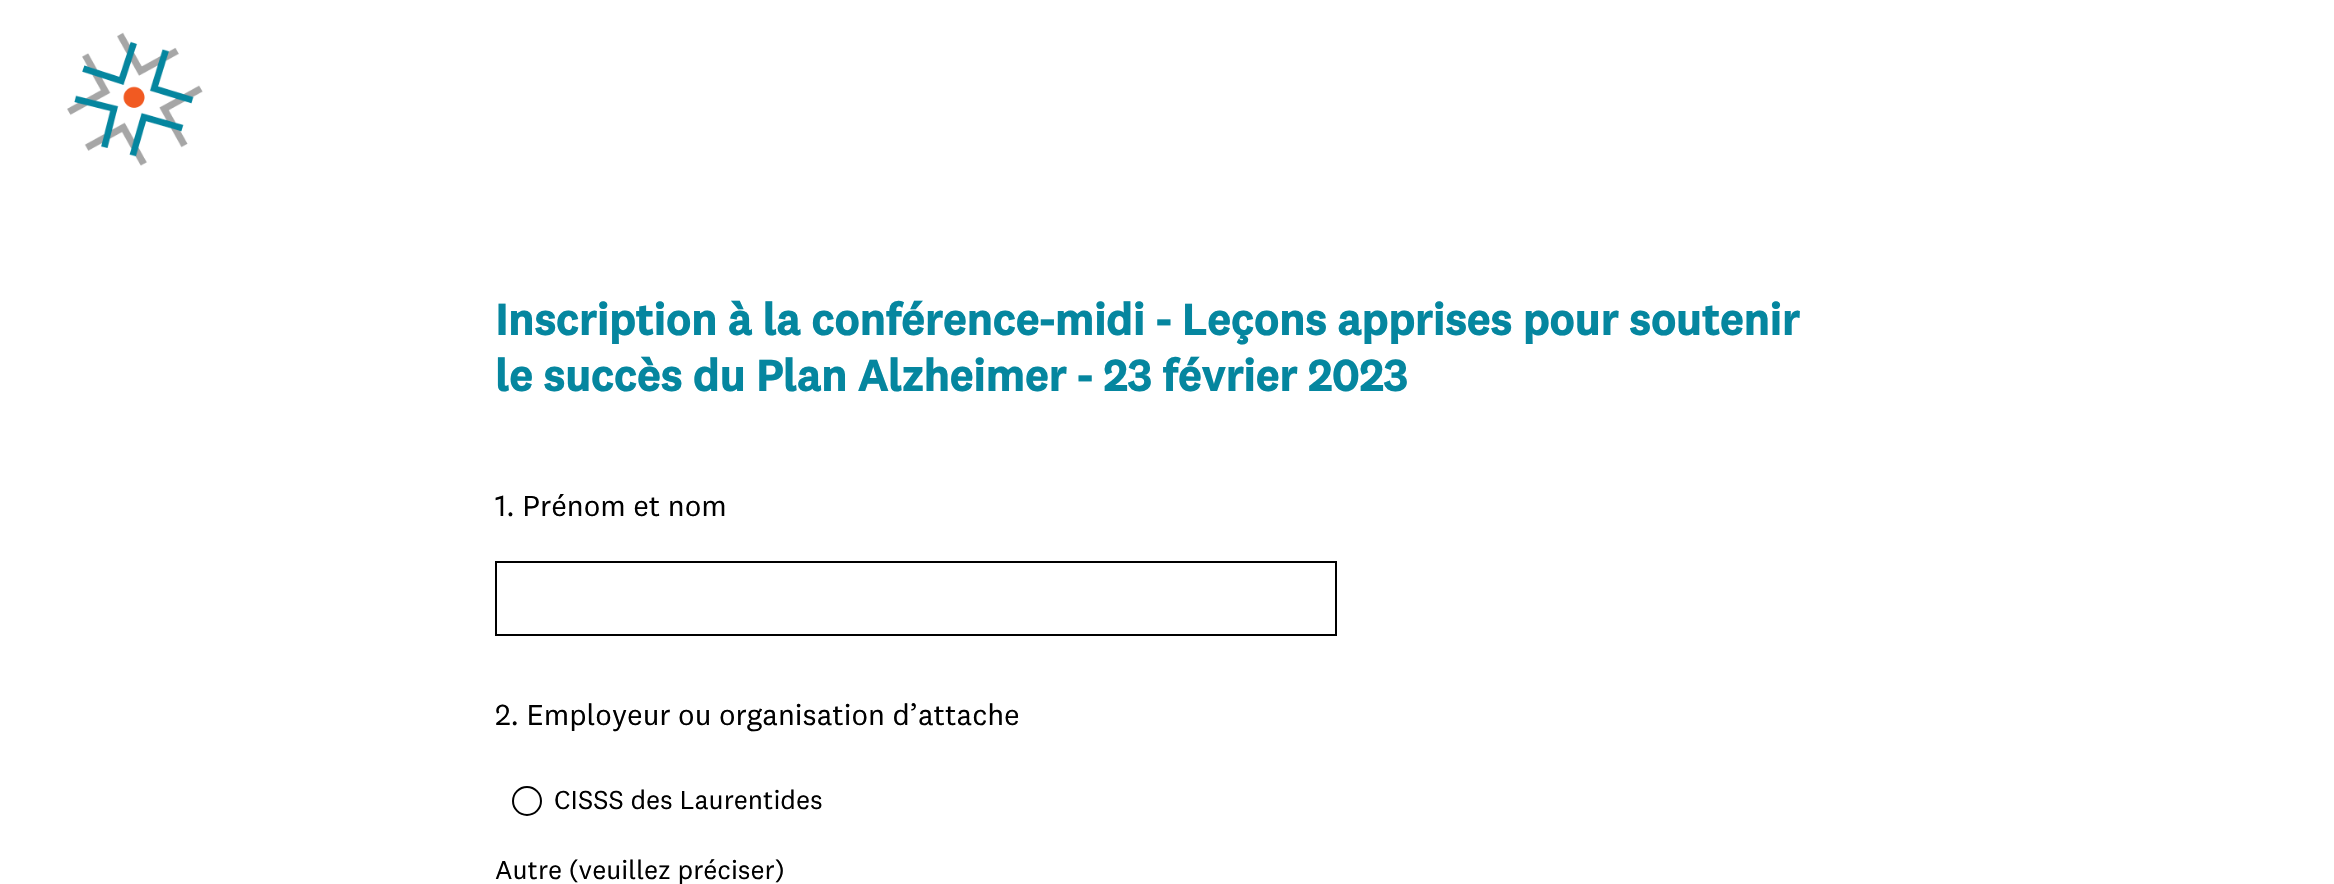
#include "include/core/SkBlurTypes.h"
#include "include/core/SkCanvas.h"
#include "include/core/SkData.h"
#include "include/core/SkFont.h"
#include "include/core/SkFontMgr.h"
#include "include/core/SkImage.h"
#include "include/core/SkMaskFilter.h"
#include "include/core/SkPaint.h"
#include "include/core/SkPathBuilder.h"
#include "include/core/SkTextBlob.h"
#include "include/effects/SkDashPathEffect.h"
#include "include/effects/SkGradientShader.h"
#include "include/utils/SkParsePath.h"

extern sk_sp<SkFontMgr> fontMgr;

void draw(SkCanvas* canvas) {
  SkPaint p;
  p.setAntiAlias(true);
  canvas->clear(SK_ColorWHITE);
  canvas->drawImageRect(SkImages::DeferredFromEncodedData(SkData::MakeFromFileName("images/1.png")), SkRect::MakeLTRB(67, 32, 203, 166), SkSamplingOptions());
  p.setStyle(SkPaint::kStroke_Style);
  p.setStrokeWidth(2);
  p.setColor(SK_ColorBLACK);
  canvas->drawRect(SkRect::MakeLTRB(496, 562, 1336, 635), p);
  canvas->drawCircle(527, 801, 14, p);
  SkFont font1(fontMgr->matchFamilyStyle("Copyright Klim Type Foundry", SkFontStyle::Bold()), 45);
  font1.setSubpixel(true);
  p.setStyle(SkPaint::kFill_Style);
  p.setColor(SkColorSetRGB(5, 134, 159));
  canvas->drawString("Inscription à la conférence-midi - Leçons apprises pour soutenir", 495, 335, font1, p);
  canvas->drawString("le succès du Plan Alzheimer - 23 février 2023", 495, 391, font1, p);
  SkFont font2(fontMgr->matchFamilyStyle("Copyright Klim Type Foundry", SkFontStyle::Normal()), 30);
  font2.setSubpixel(true);
  p.setColor(SK_ColorBLACK);
  canvas->drawString("1. Prénom et nom", 495, 516, font2, p);
  canvas->drawString("2. Employeur ou organisation d’attache", 495, 725, font2, p);
  SkFont font3(fontMgr->matchFamilyStyle("Copyright Klim Type Foundry", SkFontStyle::Normal()), 27);
  font3.setSubpixel(true);
  canvas->drawString("CISSS des Laurentides", 554, 809, font3, p);
  canvas->drawString("Autre (veuillez préciser)", 495, 879, font3, p);
}
